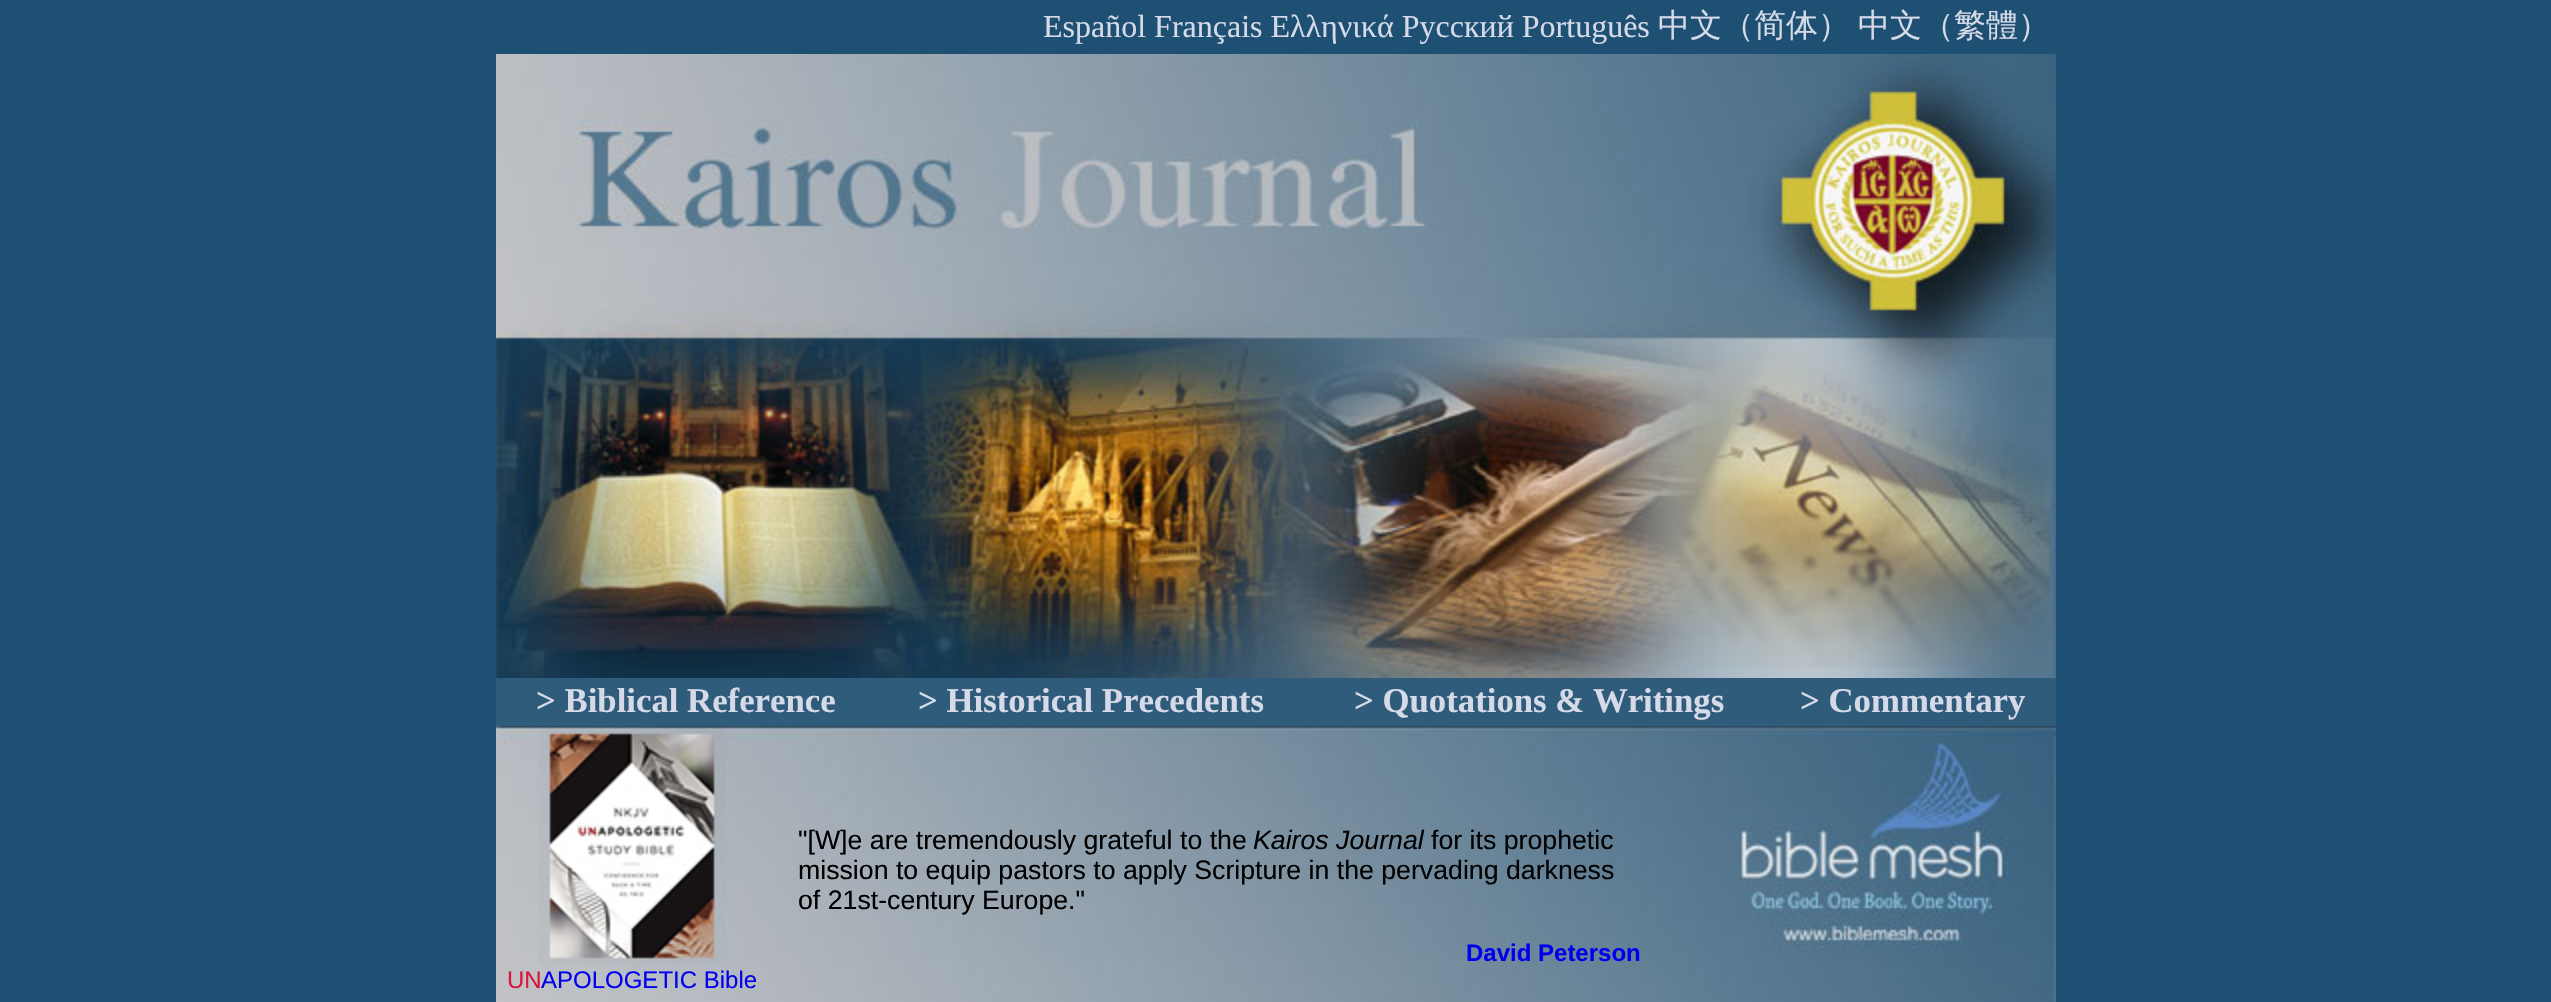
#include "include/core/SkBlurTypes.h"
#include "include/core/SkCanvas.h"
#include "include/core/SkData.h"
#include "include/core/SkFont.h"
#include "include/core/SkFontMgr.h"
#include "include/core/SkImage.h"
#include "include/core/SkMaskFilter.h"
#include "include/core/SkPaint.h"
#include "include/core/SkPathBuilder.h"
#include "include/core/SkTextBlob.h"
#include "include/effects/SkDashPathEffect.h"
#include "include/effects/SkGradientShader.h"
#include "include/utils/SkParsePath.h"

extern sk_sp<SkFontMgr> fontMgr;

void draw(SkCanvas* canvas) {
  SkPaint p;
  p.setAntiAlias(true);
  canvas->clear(SkColorSetRGB(30, 80, 115));
  canvas->drawImageRect(SkImages::DeferredFromEncodedData(SkData::MakeFromFileName("images/1.png")), SkRect::MakeLTRB(496, 54, 2056, 678), SkSamplingOptions());
  p.setColor(SkColorSetRGB(48, 92, 123));
  canvas->drawRect(SkRect::MakeLTRB(496, 678, 2056, 726), p);
  canvas->drawImageRect(SkImages::DeferredFromEncodedData(SkData::MakeFromFileName("images/2.png")), SkRect::MakeLTRB(496, 726, 2056, 1002), SkSamplingOptions());
  canvas->drawImageRect(SkImages::DeferredFromEncodedData(SkData::MakeFromFileName("images/3.png")), SkRect::MakeLTRB(1738, 740, 2008, 950), SkSamplingOptions());
  canvas->drawImageRect(SkImages::DeferredFromEncodedData(SkData::MakeFromFileName("images/4.png")), SkRect::MakeLTRB(538, 726, 726, 966), SkSamplingOptions());
  SkFont font1(fontMgr->matchFamilyStyle("Liberation Serif", SkFontStyle::Normal()), 32);
  font1.setSubpixel(true);
  p.setColor(SkColorSetRGB(214, 218, 232));
  canvas->drawString("Español Français Ελληνικά Русский Português", 1043, 37, font1, p);
  SkFont font2(fontMgr->matchFamilyStyle("WenQuanYi Zen Hei", SkFontStyle(500, SkFontStyle::kNormal_Width, SkFontStyle::kUpright_Slant)), 32);
  font2.setSubpixel(true);
  canvas->drawString("中文（简体）", 1658, 36, font2, p);
  canvas->drawString("中文（繁體）", 1858, 36, font2, p);
  SkFont font3(fontMgr->matchFamilyStyle("Liberation Serif", SkFontStyle::Bold()), 34.75f);
  font3.setSubpixel(true);
  canvas->drawString("> Biblical Reference", 536, 712, font3, p);
  canvas->drawString("> Historical Precedents", 918, 712, font3, p);
  canvas->drawString("> Quotations & Writings", 1354, 712, font3, p);
  canvas->drawString("> Commentary", 1800, 712, font3, p);
  SkFont font4(fontMgr->matchFamilyStyle("Liberation Sans", SkFontStyle::Normal()), 26.7f);
  font4.setSubpixel(true);
  p.setColor(SK_ColorBLACK);
  canvas->drawString("\"[W]e are tremendously grateful to the", 798, 849, font4, p);
  SkFont font5(fontMgr->matchFamilyStyle("Liberation Sans", SkFontStyle::Italic()), 26.7f);
  font5.setSubpixel(true);
  canvas->drawString("Kairos Journal", 1253, 849, font5, p);
  canvas->drawString("for its prophetic", 1431, 849, font4, p);
  canvas->drawString("mission to equip pastors to apply Scripture in the pervading darkness", 798, 879, font4, p);
  canvas->drawString("of 21st-century Europe.\"", 798, 909, font4, p);
  SkFont font6(fontMgr->matchFamilyStyle("Liberation Sans", SkFontStyle::Bold()), 24);
  font6.setSubpixel(true);
  p.setColor(SkColorSetRGB(0, 0, 238));
  canvas->drawString("David Peterson", 1466, 961, font6, p);
  SkFont font7(fontMgr->matchFamilyStyle("Liberation Sans", SkFontStyle::Normal()), 24);
  font7.setSubpixel(true);
  p.setColor(SkColorSetRGB(220, 20, 60));
  canvas->drawString("UN", 507, 988, font7, p);
  p.setColor(SkColorSetRGB(0, 0, 238));
  canvas->drawString("APOLOGETIC Bible", 541, 988, font7, p);
}
